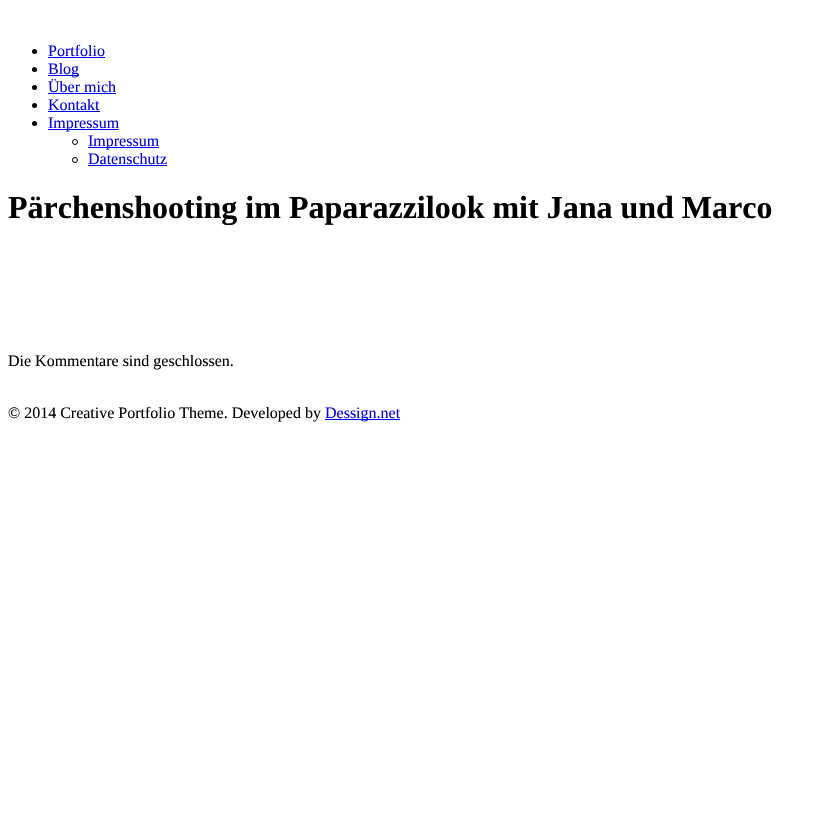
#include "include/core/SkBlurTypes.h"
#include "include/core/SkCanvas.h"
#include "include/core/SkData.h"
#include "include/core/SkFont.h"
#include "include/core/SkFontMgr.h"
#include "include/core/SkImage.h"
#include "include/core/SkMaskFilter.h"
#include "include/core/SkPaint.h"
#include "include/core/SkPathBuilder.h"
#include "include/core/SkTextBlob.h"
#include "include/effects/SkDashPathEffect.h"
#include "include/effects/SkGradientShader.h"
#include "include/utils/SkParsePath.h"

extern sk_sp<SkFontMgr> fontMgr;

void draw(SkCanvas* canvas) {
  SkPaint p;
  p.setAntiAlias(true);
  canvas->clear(SK_ColorWHITE);
  p.setColor(SK_ColorBLACK);
  canvas->drawCircle(34.5f, 51.5f, 2.5f, p);
  p.setColor(SkColorSetRGB(0, 0, 238));
  canvas->drawRect(SkRect::MakeLTRB(48, 57, 105, 58), p);
  p.setColor(SK_ColorBLACK);
  canvas->drawCircle(34.5f, 69.5f, 2.5f, p);
  p.setColor(SkColorSetRGB(0, 0, 238));
  canvas->drawRect(SkRect::MakeLTRB(48, 75, 79, 76), p);
  p.setColor(SK_ColorBLACK);
  canvas->drawCircle(34.5f, 87.5f, 2.5f, p);
  p.setColor(SkColorSetRGB(0, 0, 238));
  canvas->drawRect(SkRect::MakeLTRB(48, 93, 116, 94), p);
  p.setColor(SK_ColorBLACK);
  canvas->drawCircle(34.5f, 105.5f, 2.5f, p);
  p.setColor(SkColorSetRGB(0, 0, 238));
  canvas->drawRect(SkRect::MakeLTRB(48, 111, 100, 112), p);
  p.setColor(SK_ColorBLACK);
  canvas->drawCircle(34.5f, 123.5f, 2.5f, p);
  p.setColor(SkColorSetRGB(0, 0, 238));
  canvas->drawRect(SkRect::MakeLTRB(48, 129, 119, 130), p);
  p.setStyle(SkPaint::kStroke_Style);
  p.setStrokeWidth(1);
  p.setColor(SK_ColorBLACK);
  canvas->drawCircle(75, 142, 2.5f, p);
  p.setStyle(SkPaint::kFill_Style);
  p.setColor(SkColorSetRGB(0, 0, 238));
  canvas->drawRect(SkRect::MakeLTRB(88, 147, 159, 148), p);
  p.setStyle(SkPaint::kStroke_Style);
  p.setColor(SK_ColorBLACK);
  canvas->drawCircle(75, 160, 2.5f, p);
  p.setStyle(SkPaint::kFill_Style);
  p.setColor(SkColorSetRGB(0, 0, 238));
  canvas->drawRect(SkRect::MakeLTRB(88, 165, 167, 166), p);
  canvas->drawRect(SkRect::MakeLTRB(325, 419, 400, 420), p);
  SkFont font1(fontMgr->matchFamilyStyle("Liberation Serif", SkFontStyle::Normal()), 16);
  font1.setSubpixel(true);
  canvas->drawString("Portfolio", 48, 56, font1, p);
  canvas->drawString("Blog", 48, 74, font1, p);
  canvas->drawString("Über mich", 48, 92, font1, p);
  canvas->drawString("Kontakt", 48, 110, font1, p);
  canvas->drawString("Impressum", 48, 128, font1, p);
  canvas->drawString("Impressum", 88, 146, font1, p);
  canvas->drawString("Datenschutz", 88, 164, font1, p);
  SkFont font2(fontMgr->matchFamilyStyle("Liberation Serif", SkFontStyle::Bold()), 32);
  font2.setSubpixel(true);
  p.setColor(SK_ColorBLACK);
  canvas->drawString("Pärchenshooting im Paparazzilook mit Jana und Marco", 8, 218, font2, p);
  canvas->drawString("Die Kommentare sind geschlossen.", 8, 366, font1, p);
  canvas->drawString("© 2014 Creative Portfolio Theme. Developed by", 8, 418, font1, p);
  p.setColor(SkColorSetRGB(0, 0, 238));
  canvas->drawString("Dessign.net", 325, 418, font1, p);
}
